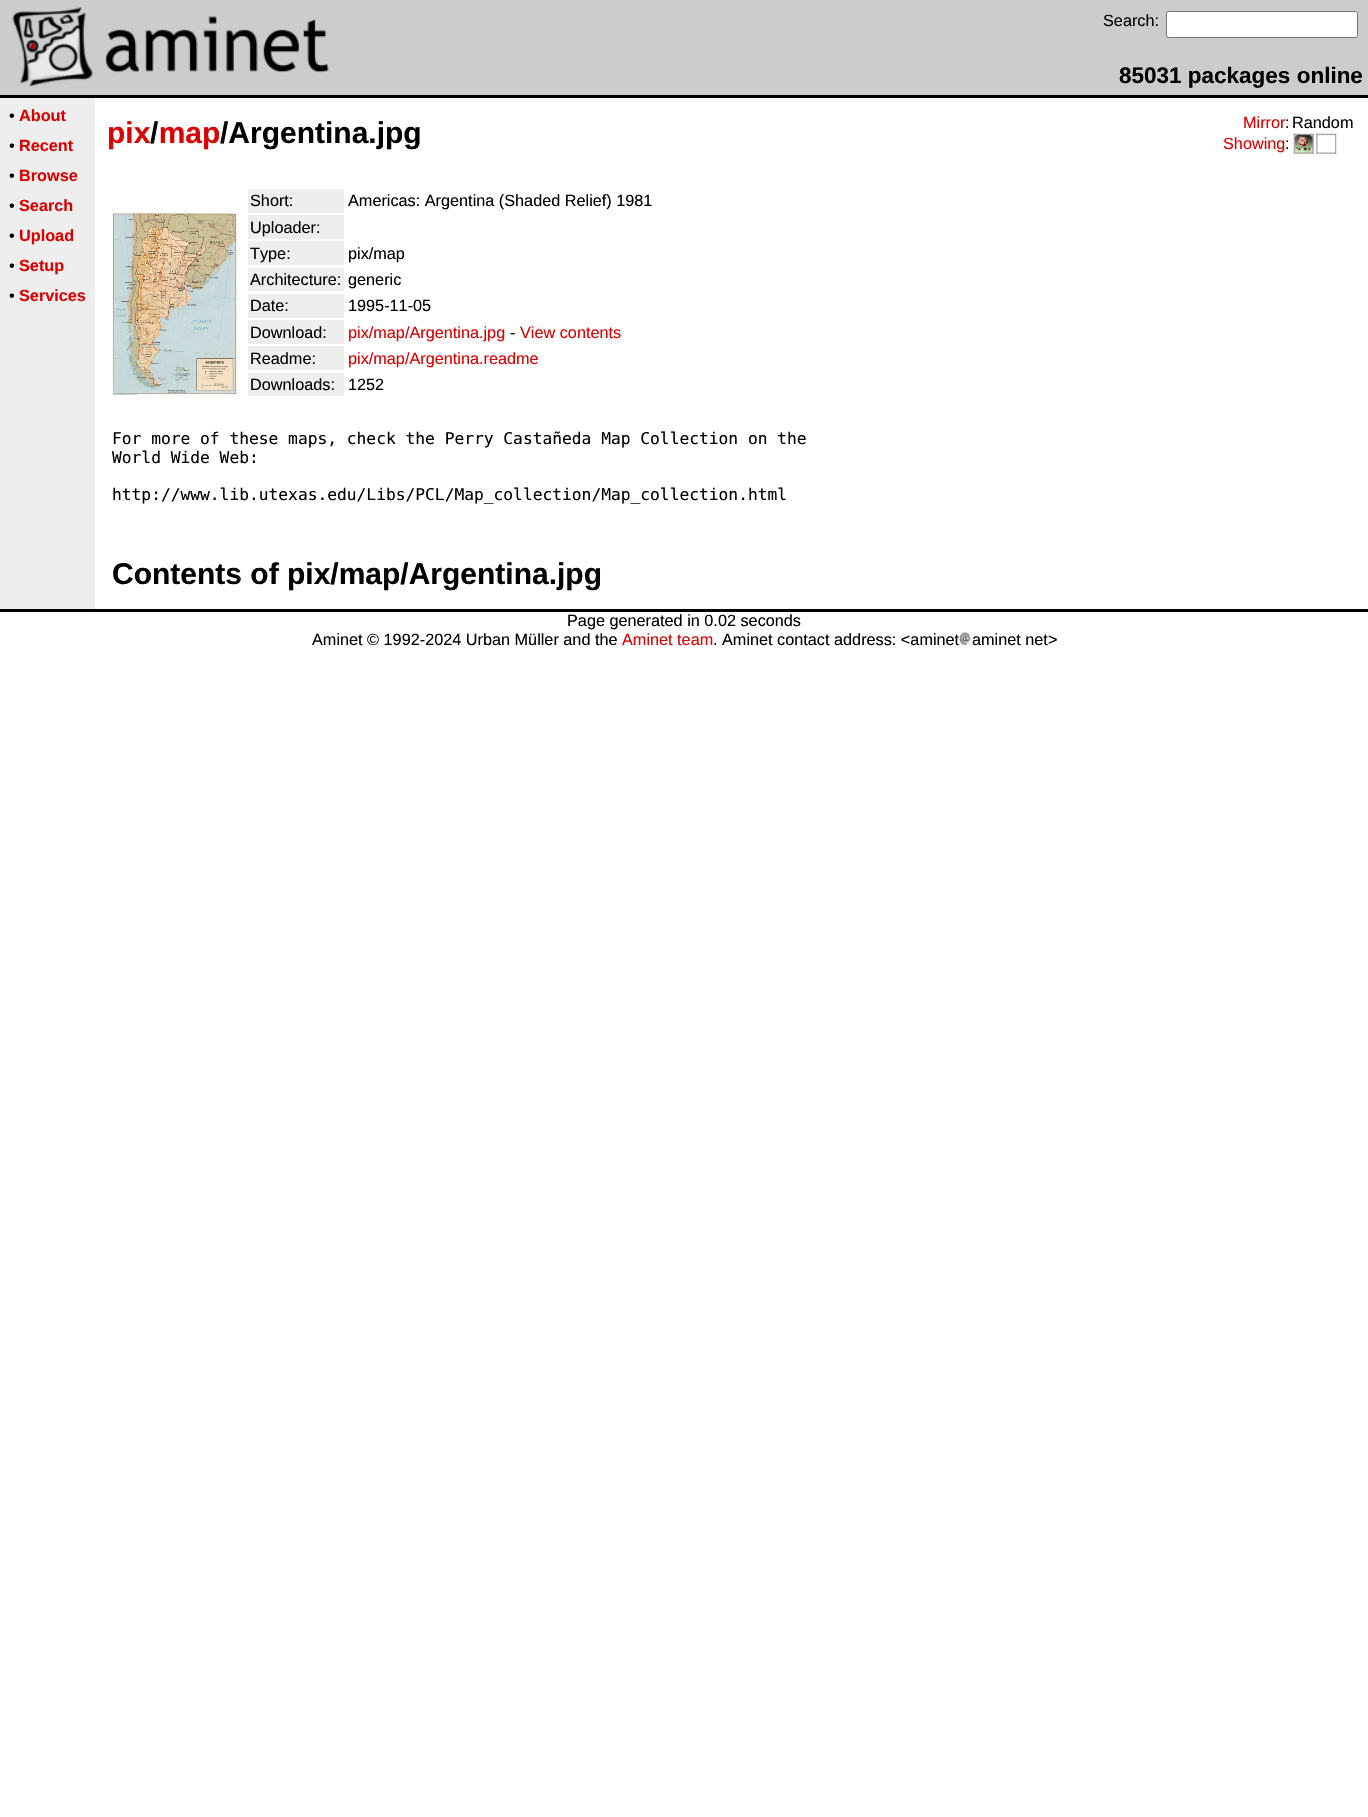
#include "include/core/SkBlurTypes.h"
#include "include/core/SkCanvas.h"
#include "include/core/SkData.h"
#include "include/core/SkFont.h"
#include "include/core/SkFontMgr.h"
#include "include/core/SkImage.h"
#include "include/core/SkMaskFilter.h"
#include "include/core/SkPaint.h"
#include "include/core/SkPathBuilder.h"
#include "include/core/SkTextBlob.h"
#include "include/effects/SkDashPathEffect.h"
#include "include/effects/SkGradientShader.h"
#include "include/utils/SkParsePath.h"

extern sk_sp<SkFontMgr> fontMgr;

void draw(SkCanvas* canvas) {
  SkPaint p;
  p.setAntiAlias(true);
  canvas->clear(SK_ColorWHITE);
  p.setColor(SkColorSetRGB(204, 204, 204));
  canvas->drawRect(SkRect::MakeLTRB(0, 0, 1368, 95), p);
  canvas->drawImageRect(SkImages::DeferredFromEncodedData(SkData::MakeFromFileName("images/1.png")), SkRect::MakeLTRB(12, 7, 93, 87), SkSamplingOptions());
  canvas->drawImageRect(SkImages::DeferredFromEncodedData(SkData::MakeFromFileName("images/2.png")), SkRect::MakeLTRB(105, 16, 329, 73), SkSamplingOptions());
  p.setColor(SK_ColorWHITE);
  canvas->drawRoundRect(SkRect::MakeLTRB(1166.5f, 11.5f, 1357.5f, 37.5f), 2, 2, p);
  p.setStyle(SkPaint::kStroke_Style);
  p.setStrokeWidth(1);
  p.setColor(SkColorSetRGB(118, 118, 118));
  canvas->drawRoundRect(SkRect::MakeLTRB(1166.5f, 11.5f, 1357.5f, 37.5f), 2, 2, p);
  p.setStyle(SkPaint::kFill_Style);
  p.setColor(SK_ColorBLACK);
  canvas->drawRect(SkRect::MakeLTRB(0, 95, 1368, 98), p);
  p.setColor(SkColorSetRGB(238, 238, 238));
  canvas->drawRect(SkRect::MakeLTRB(0, 98, 95, 609), p);
  canvas->drawImageRect(SkImages::DeferredFromEncodedData(SkData::MakeFromFileName("images/3.png")), SkRect::MakeLTRB(1293, 133, 1314, 154), SkSamplingOptions());
  canvas->drawImageRect(SkImages::DeferredFromEncodedData(SkData::MakeFromFileName("images/4.png")), SkRect::MakeLTRB(1316, 133, 1337, 154), SkSamplingOptions());
  canvas->drawImageRect(SkImages::DeferredFromEncodedData(SkData::MakeFromFileName("images/5.png")), SkRect::MakeLTRB(112, 212, 238, 395), SkSamplingOptions());
  canvas->drawRect(SkRect::MakeLTRB(248, 189, 344, 213), p);
  canvas->drawRect(SkRect::MakeLTRB(248, 215, 344, 239), p);
  canvas->drawRect(SkRect::MakeLTRB(248, 241, 344, 265), p);
  canvas->drawRect(SkRect::MakeLTRB(248, 268, 344, 291), p);
  canvas->drawRect(SkRect::MakeLTRB(248, 294, 344, 318), p);
  canvas->drawRect(SkRect::MakeLTRB(248, 320, 344, 344), p);
  canvas->drawRect(SkRect::MakeLTRB(248, 346, 344, 370), p);
  canvas->drawRect(SkRect::MakeLTRB(248, 373, 344, 396), p);
  p.setColor(SK_ColorBLACK);
  canvas->drawRect(SkRect::MakeLTRB(0, 609, 1368, 612), p);
  SkFont font1(fontMgr->matchFamilyStyle("Liberation Sans", SkFontStyle::Normal()), 16.25f);
  font1.setSubpixel(true);
  canvas->drawString("Search:", 1103, 26, font1, p);
  SkFont font2(fontMgr->matchFamilyStyle("Liberation Sans", SkFontStyle::Bold()), 22.5f);
  font2.setSubpixel(true);
  canvas->drawString("85031 packages online", 1119, 83, font2, p);
  canvas->drawString("•", 9, 121, font1, p);
  SkFont font3(fontMgr->matchFamilyStyle("Liberation Sans", SkFontStyle::Bold()), 16.25f);
  font3.setSubpixel(true);
  p.setColor(SkColorSetRGB(221, 0, 0));
  canvas->drawString("About", 19, 121, font3, p);
  p.setColor(SK_ColorBLACK);
  canvas->drawString("•", 9, 151, font1, p);
  p.setColor(SkColorSetRGB(221, 0, 0));
  canvas->drawString("Recent", 19, 151, font3, p);
  p.setColor(SK_ColorBLACK);
  canvas->drawString("•", 9, 181, font1, p);
  p.setColor(SkColorSetRGB(221, 0, 0));
  canvas->drawString("Browse", 19, 181, font3, p);
  p.setColor(SK_ColorBLACK);
  canvas->drawString("•", 9, 211, font1, p);
  p.setColor(SkColorSetRGB(221, 0, 0));
  canvas->drawString("Search", 19, 211, font3, p);
  p.setColor(SK_ColorBLACK);
  canvas->drawString("•", 9, 241, font1, p);
  p.setColor(SkColorSetRGB(221, 0, 0));
  canvas->drawString("Upload", 19, 241, font3, p);
  p.setColor(SK_ColorBLACK);
  canvas->drawString("•", 9, 271, font1, p);
  p.setColor(SkColorSetRGB(221, 0, 0));
  canvas->drawString("Setup", 19, 271, font3, p);
  p.setColor(SK_ColorBLACK);
  canvas->drawString("•", 9, 301, font1, p);
  p.setColor(SkColorSetRGB(221, 0, 0));
  canvas->drawString("Services", 19, 301, font3, p);
  SkFont font4(fontMgr->matchFamilyStyle("Liberation Sans", SkFontStyle::Bold()), 30);
  font4.setSubpixel(true);
  canvas->drawString("pix map", 107, 143, font4, p);
  p.setColor(SK_ColorBLACK);
  canvas->drawString("/", 150, 143, font4, p);
  canvas->drawString("/Argentina.jpg", 220, 143, font4, p);
  p.setColor(SkColorSetRGB(221, 0, 0));
  canvas->drawString("Mirror", 1243, 128, font1, p);
  p.setColor(SK_ColorBLACK);
  canvas->drawString(":", 1285, 128, font1, p);
  canvas->drawString("Random", 1292, 128, font1, p);
  p.setColor(SkColorSetRGB(221, 0, 0));
  canvas->drawString("Showing", 1223, 149, font1, p);
  p.setColor(SK_ColorBLACK);
  canvas->drawString(":", 1285, 149, font1, p);
  canvas->drawString("Short:", 250, 206, font1, p);
  canvas->drawString("Americas: Argentina (Shaded Relief) 1981", 348, 206, font1, p);
  canvas->drawString("Uploader:", 250, 233, font1, p);
  canvas->drawString("Type:", 250, 259, font1, p);
  canvas->drawString("pix/map", 348, 259, font1, p);
  canvas->drawString("Architecture:", 250, 285, font1, p);
  canvas->drawString("generic", 348, 285, font1, p);
  canvas->drawString("Date:", 250, 311, font1, p);
  canvas->drawString("1995-11-05", 348, 311, font1, p);
  canvas->drawString("Download:", 250, 338, font1, p);
  p.setColor(SkColorSetRGB(221, 0, 0));
  canvas->drawString("pix/map/Argentina.jpg", 348, 338, font1, p);
  p.setColor(SK_ColorBLACK);
  canvas->drawString("-", 510, 338, font1, p);
  p.setColor(SkColorSetRGB(221, 0, 0));
  canvas->drawString("View contents", 520, 338, font1, p);
  p.setColor(SK_ColorBLACK);
  canvas->drawString("Readme:", 250, 364, font1, p);
  p.setColor(SkColorSetRGB(221, 0, 0));
  canvas->drawString("pix/map/Argentina.readme", 348, 364, font1, p);
  p.setColor(SK_ColorBLACK);
  canvas->drawString("Downloads:", 250, 390, font1, p);
  canvas->drawString("1252", 348, 390, font1, p);
  SkFont font5(fontMgr->matchFamilyStyle("DejaVu Sans Mono", SkFontStyle::Normal()), 16.25f);
  font5.setSubpixel(true);
  canvas->drawString("For more of these maps, check the Perry Castañeda Map Collection on the", 112, 444, font5, p);
  canvas->drawString("World Wide Web:", 112, 463, font5, p);
  canvas->drawString("http://www.lib.utexas.edu/Libs/PCL/Map_collection/Map_collection.html", 112, 500, font5, p);
  canvas->drawString("Contents of pix/map/Argentina.jpg", 112, 584, font4, p);
  canvas->drawString("Page generated in 0.02 seconds", 567, 626, font1, p);
  canvas->drawString("Aminet © 1992-2024 Urban Müller and the", 312, 645, font1, p);
  p.setColor(SkColorSetRGB(221, 0, 0));
  canvas->drawString("Aminet team", 622, 645, font1, p);
  p.setColor(SK_ColorBLACK);
  canvas->drawString(". Aminet contact address: <aminet", 713, 645, font1, p);
  canvas->drawImageRect(SkImages::DeferredFromEncodedData(SkData::MakeFromFileName("images/6.png")), SkRect::MakeLTRB(958, 632, 972, 645), SkSamplingOptions());
  canvas->drawString("aminet net>", 972, 645, font1, p);
}
